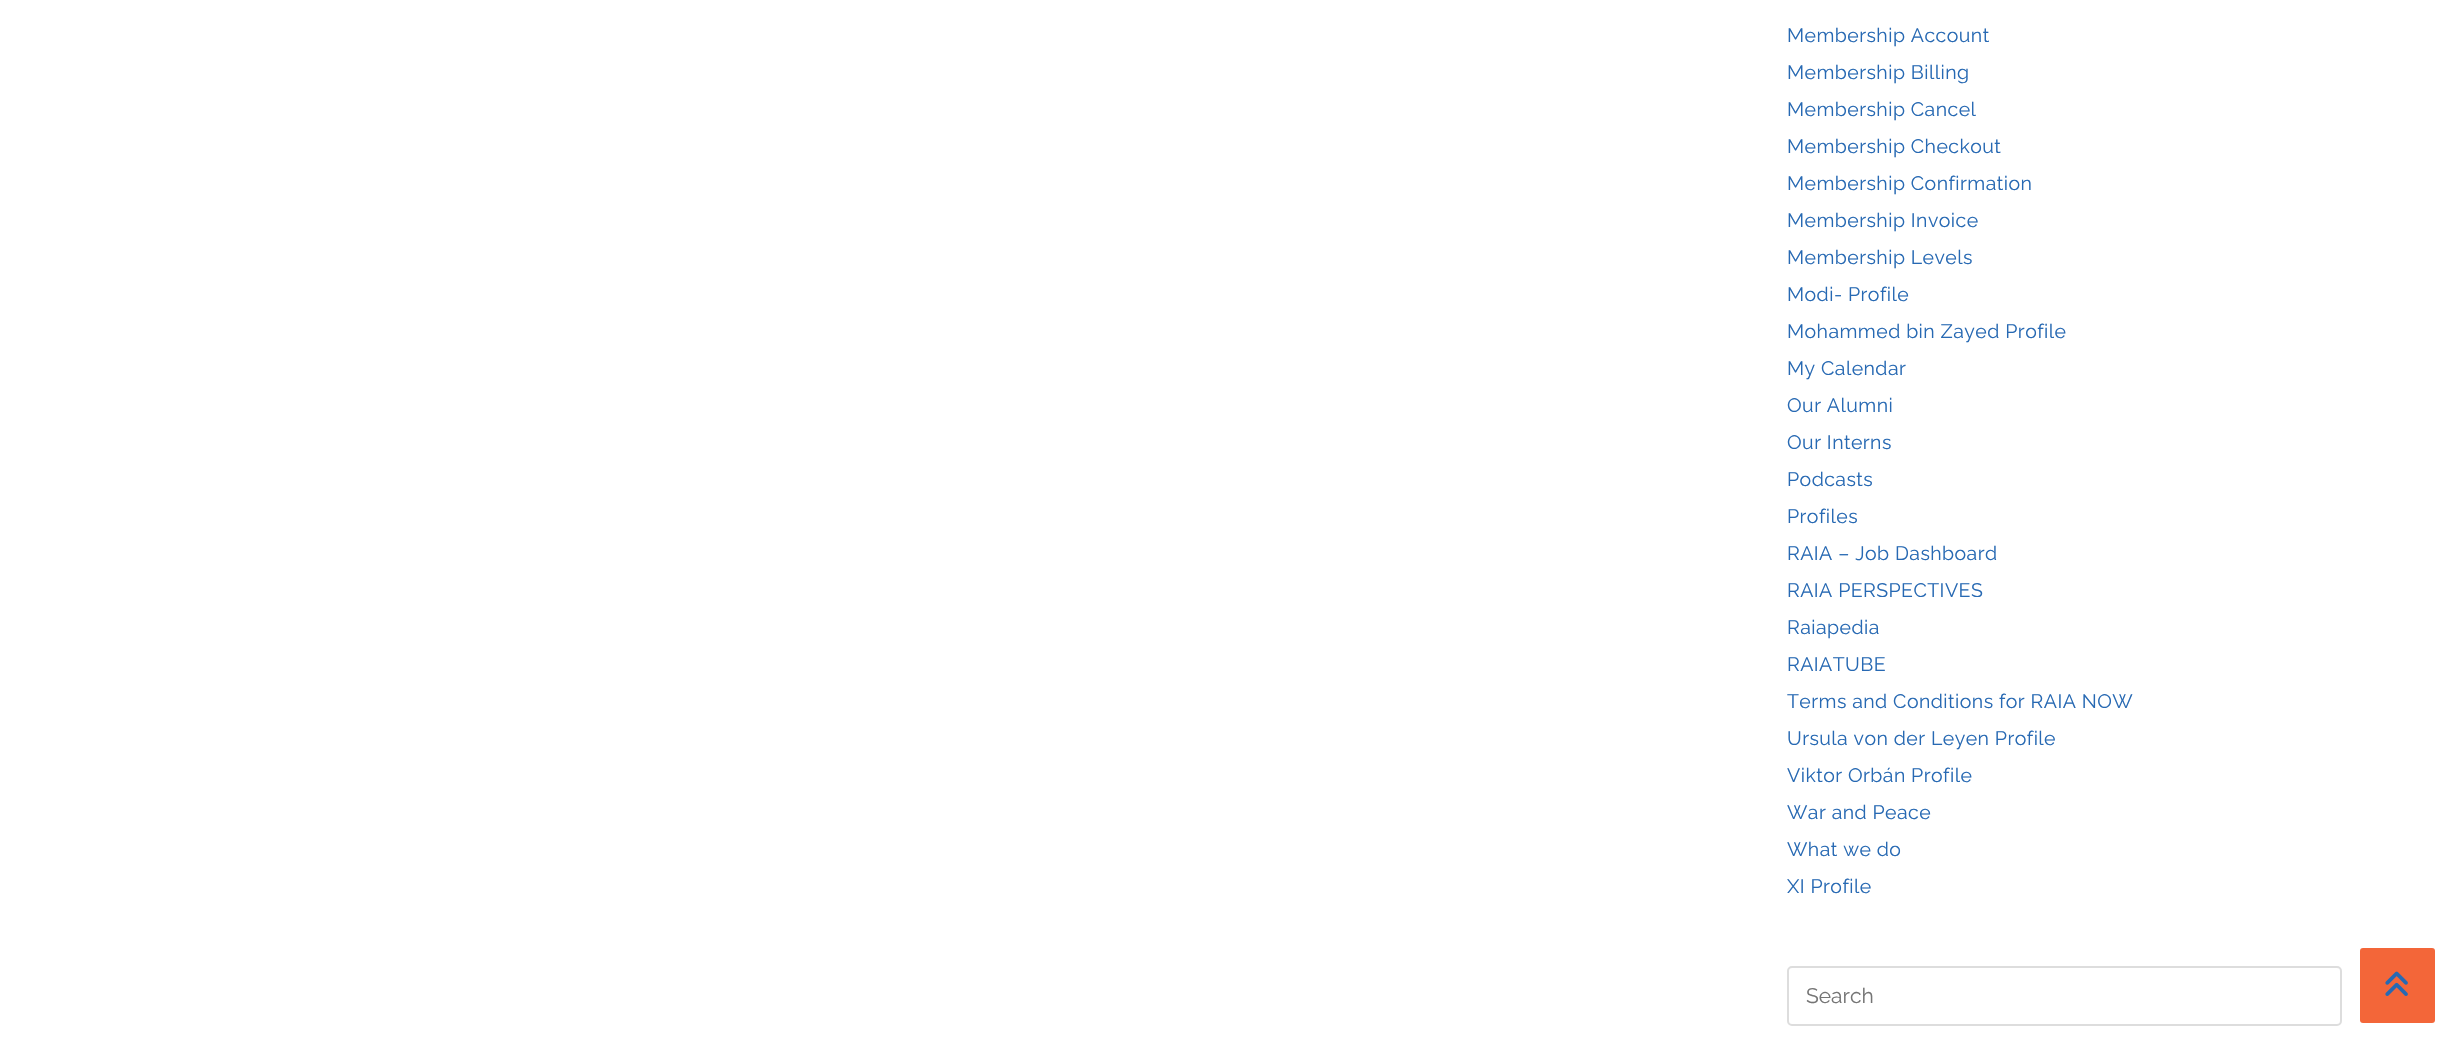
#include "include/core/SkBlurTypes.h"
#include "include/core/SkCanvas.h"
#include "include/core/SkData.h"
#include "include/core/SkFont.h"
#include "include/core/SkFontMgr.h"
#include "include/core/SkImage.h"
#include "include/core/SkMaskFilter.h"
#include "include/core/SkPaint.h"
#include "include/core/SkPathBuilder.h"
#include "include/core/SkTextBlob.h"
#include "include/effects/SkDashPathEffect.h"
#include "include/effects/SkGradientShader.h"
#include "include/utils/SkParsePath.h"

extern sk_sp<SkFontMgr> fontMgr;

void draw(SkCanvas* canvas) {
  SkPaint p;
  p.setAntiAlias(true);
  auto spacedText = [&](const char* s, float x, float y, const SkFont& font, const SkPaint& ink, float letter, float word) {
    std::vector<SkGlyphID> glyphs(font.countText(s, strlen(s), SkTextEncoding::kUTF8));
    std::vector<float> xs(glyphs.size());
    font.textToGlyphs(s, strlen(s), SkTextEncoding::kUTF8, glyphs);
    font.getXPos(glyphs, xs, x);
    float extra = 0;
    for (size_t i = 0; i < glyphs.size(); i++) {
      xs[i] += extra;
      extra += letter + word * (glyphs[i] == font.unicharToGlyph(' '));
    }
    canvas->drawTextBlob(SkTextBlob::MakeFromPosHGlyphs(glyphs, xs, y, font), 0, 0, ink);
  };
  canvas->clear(SK_ColorWHITE);
  p.setStyle(SkPaint::kStroke_Style);
  p.setStrokeWidth(2);
  p.setColor(SkColorSetRGB(221, 221, 221));
  canvas->drawRoundRect(SkRect::MakeLTRB(1788, 967, 2341, 1025), 4, 4, p);
  p.setStyle(SkPaint::kFill_Style);
  p.setColor(SkColorSetRGB(243, 102, 57));
  canvas->drawRoundRect(SkRect::MakeLTRB(2360, 948, 2435, 1023), 3, 3, p);
  canvas->drawImageRect(SkImages::DeferredFromEncodedData(SkData::MakeFromFileName("images/1.png")), SkRect::MakeLTRB(2385, 971, 2408, 996), SkSamplingOptions());
  SkFont font1(fontMgr->matchFamilyStyle("Raleway", SkFontStyle::Normal()), 19.5f);
  font1.setSubpixel(true);
  p.setColor(SkColorSetRGB(39, 105, 179));
  spacedText("Membership Account", 1787, 42, font1, p, 0.45f, 0);
  spacedText("Membership Billing", 1787, 79, font1, p, 0.45f, 0);
  spacedText("Membership Cancel", 1787, 116, font1, p, 0.45f, 0);
  spacedText("Membership Checkout", 1787, 153, font1, p, 0.45f, 0);
  spacedText("Membership Confirmation", 1787, 190, font1, p, 0.45f, 0);
  spacedText("Membership Invoice", 1787, 227, font1, p, 0.45f, 0);
  spacedText("Membership Levels", 1787, 264, font1, p, 0.45f, 0);
  spacedText("Modi- Profile", 1787, 301, font1, p, 0.45f, 0);
  spacedText("Mohammed bin Zayed Profile", 1787, 338, font1, p, 0.45f, 0);
  spacedText("My Calendar", 1787, 375, font1, p, 0.45f, 0);
  spacedText("Our Alumni", 1787, 412, font1, p, 0.45f, 0);
  spacedText("Our Interns", 1787, 449, font1, p, 0.45f, 0);
  spacedText("Podcasts", 1787, 486, font1, p, 0.45f, 0);
  spacedText("Profiles", 1787, 523, font1, p, 0.45f, 0);
  spacedText("RAIA – Job Dashboard", 1787, 560, font1, p, 0.45f, 0);
  spacedText("RAIA PERSPECTIVES", 1787, 597, font1, p, 0.45f, 0);
  spacedText("Raiapedia", 1787, 634, font1, p, 0.45f, 0);
  spacedText("RAIATUBE", 1787, 671, font1, p, 0.45f, 0);
  spacedText("Terms and Conditions for RAIA NOW", 1787, 708, font1, p, 0.45f, 0);
  spacedText("Ursula von der Leyen Profile", 1787, 745, font1, p, 0.45f, 0);
  spacedText("Viktor Orbán Profile", 1787, 782, font1, p, 0.45f, 0);
  spacedText("War and Peace", 1787, 819, font1, p, 0.45f, 0);
  spacedText("What we do", 1787, 856, font1, p, 0.45f, 0);
  spacedText("XI Profile", 1787, 893, font1, p, 0.45f, 0);
  SkFont font2(fontMgr->matchFamilyStyle("Raleway", SkFontStyle::Normal()), 21);
  font2.setSubpixel(true);
  p.setColor(SkColorSetRGB(117, 117, 117));
  canvas->drawString("Search", 1806, 1003, font2, p);
}
